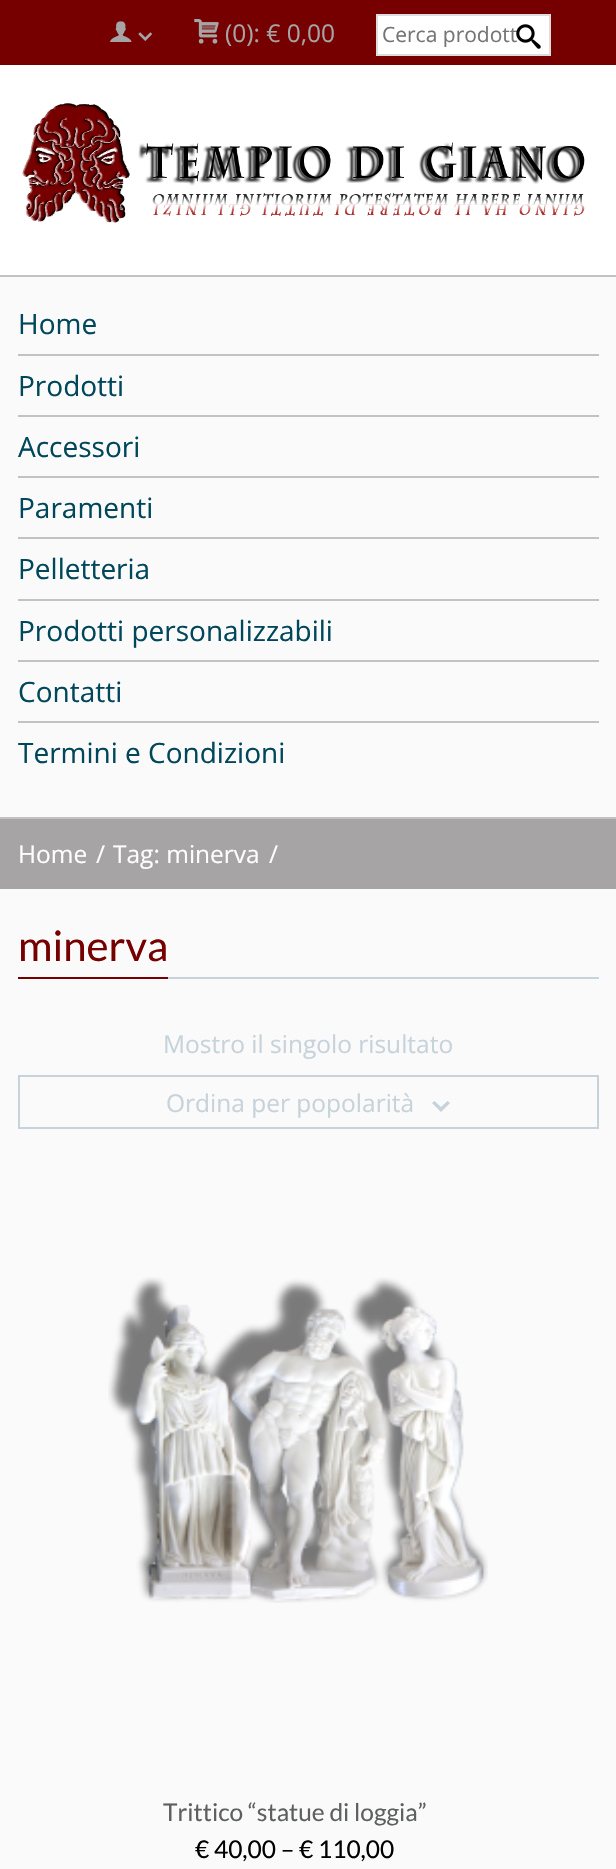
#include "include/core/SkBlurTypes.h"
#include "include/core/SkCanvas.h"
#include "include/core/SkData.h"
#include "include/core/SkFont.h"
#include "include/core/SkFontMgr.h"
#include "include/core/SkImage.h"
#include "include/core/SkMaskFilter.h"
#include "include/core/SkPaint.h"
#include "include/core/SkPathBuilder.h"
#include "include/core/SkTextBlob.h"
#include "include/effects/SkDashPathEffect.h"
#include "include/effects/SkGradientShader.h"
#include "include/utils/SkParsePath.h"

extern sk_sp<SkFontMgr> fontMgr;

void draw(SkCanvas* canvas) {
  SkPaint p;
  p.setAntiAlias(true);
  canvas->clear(SkColorSetRGB(250, 250, 250));
  p.setColor(SkColorSetRGB(118, 0, 0));
  canvas->drawRect(SkRect::MakeLTRB(0, 0, 616, 65), p);
  canvas->drawImageRect(SkImages::DeferredFromEncodedData(SkData::MakeFromFileName("images/1.png")), SkRect::MakeLTRB(110, 21, 132, 42), SkSamplingOptions());
  canvas->drawImageRect(SkImages::DeferredFromEncodedData(SkData::MakeFromFileName("images/2.png")), SkRect::MakeLTRB(138, 32, 153, 41), SkSamplingOptions());
  canvas->drawImageRect(SkImages::DeferredFromEncodedData(SkData::MakeFromFileName("images/3.png")), SkRect::MakeLTRB(194, 19, 219, 44), SkSamplingOptions());
  p.setColor(SK_ColorWHITE);
  canvas->drawRect(SkRect::MakeLTRB(377, 15, 550, 55), p);
  p.setStyle(SkPaint::kStroke_Style);
  p.setStrokeWidth(2);
  p.setColor(SkColorSetRGB(221, 221, 221));
  canvas->drawRect(SkRect::MakeLTRB(377, 15, 550, 55), p);
  p.setStyle(SkPaint::kFill_Style);
  p.setColor(SK_ColorWHITE);
  canvas->drawRect(SkRect::MakeLTRB(0, 65, 616, 275), p);
  canvas->drawImageRect(SkImages::DeferredFromEncodedData(SkData::MakeFromFileName("images/5.png")), SkRect::MakeLTRB(22, 103, 585, 223), SkSamplingOptions());
  p.setColor(SkColorSetRGB(193, 194, 196));
  canvas->drawRect(SkRect::MakeLTRB(0, 275, 616, 277), p);
  canvas->drawRect(SkRect::MakeLTRB(0, 817, 616, 819), p);
  canvas->drawRect(SkRect::MakeLTRB(18, 354, 599, 356), p);
  canvas->drawRect(SkRect::MakeLTRB(18, 415, 599, 417), p);
  canvas->drawRect(SkRect::MakeLTRB(18, 476, 599, 478), p);
  canvas->drawRect(SkRect::MakeLTRB(18, 537, 599, 539), p);
  canvas->drawRect(SkRect::MakeLTRB(18, 599, 599, 601), p);
  canvas->drawRect(SkRect::MakeLTRB(18, 660, 599, 662), p);
  canvas->drawRect(SkRect::MakeLTRB(18, 721, 599, 723), p);
  p.setColor(SkColorSetRGB(166, 164, 164));
  canvas->drawRect(SkRect::MakeLTRB(0, 819, 616, 889), p);
  p.setColor(SkColorSetRGB(199, 211, 218));
  canvas->drawRect(SkRect::MakeLTRB(168, 977, 599, 979), p);
  p.setColor(SkColorSetRGB(118, 0, 0));
  canvas->drawRect(SkRect::MakeLTRB(18, 977, 168, 979), p);
  p.setStyle(SkPaint::kStroke_Style);
  p.setColor(SkColorSetRGB(199, 211, 218));
  canvas->drawRect(SkRect::MakeLTRB(19, 1076, 598, 1128), p);
  p.setStyle(SkPaint::kFill_Style);
  canvas->drawPath(SkPathBuilder().moveTo(432, 1103).lineTo(434.5f, 1101).lineTo(441, 1107).lineTo(447.5f, 1101).lineTo(450, 1103).lineTo(441, 1112).close().detach(), p);
  canvas->drawImageRect(SkImages::DeferredFromEncodedData(SkData::MakeFromFileName("images/6.png")), SkRect::MakeLTRB(108, 1277, 488, 1603), SkSamplingOptions());
  SkFont font1(fontMgr->matchFamilyStyle("Open Sans", SkFontStyle::Normal()), 24.5f);
  font1.setSubpixel(true);
  p.setColor(SkColorSetRGB(166, 164, 164));
  canvas->drawString("(0): € 0,00", 225, 42, font1, p);
  SkFont font2(fontMgr->matchFamilyStyle("Open Sans", SkFontStyle::Normal()), 21);
  font2.setSubpixel(true);
  p.setColor(SkColorSetRGB(117, 117, 117));
  canvas->drawString("Cerca prodott", 382, 42, font2, p);
  canvas->drawImageRect(SkImages::DeferredFromEncodedData(SkData::MakeFromFileName("images/4.png")), SkRect::MakeLTRB(516, 24, 541, 49), SkSamplingOptions());
  SkFont font3(fontMgr->matchFamilyStyle("Open Sans", SkFontStyle::Normal()), 28);
  font3.setSubpixel(true);
  p.setColor(SkColorSetRGB(0, 71, 91));
  canvas->drawString("Home", 18, 334, font3, p);
  canvas->drawString("Prodotti", 18, 396, font3, p);
  canvas->drawString("Accessori", 18, 457, font3, p);
  canvas->drawString("Paramenti", 18, 518, font3, p);
  canvas->drawString("Pelletteria", 18, 579, font3, p);
  canvas->drawString("Prodotti personalizzabili", 18, 641, font3, p);
  canvas->drawString("Contatti", 18, 702, font3, p);
  canvas->drawString("Termini e Condizioni", 18, 763, font3, p);
  p.setColor(SK_ColorWHITE);
  canvas->drawString("Home", 18, 863, font1, p);
  canvas->drawString("/", 96, 863, font1, p);
  canvas->drawString("Tag: minerva", 113, 863, font1, p);
  canvas->drawString("/", 269, 863, font1, p);
  SkFont font4(fontMgr->matchFamilyStyle("Lato", SkFontStyle::Normal()), 42);
  font4.setSubpixel(true);
  p.setColor(SkColorSetRGB(118, 0, 0));
  canvas->drawString("minerva", 18, 961, font4, p);
  p.setColor(SkColorSetRGB(199, 211, 218));
  canvas->drawString("Mostro il singolo risultato", 163, 1053, font1, p);
  canvas->drawString("Ordina per popolarità", 166, 1112, font1, p);
  SkFont font5(fontMgr->matchFamilyStyle("Lato", SkFontStyle::Normal()), 24.5f);
  font5.setSubpixel(true);
  p.setColor(SkColorSetRGB(94, 96, 95));
  canvas->drawString("Trittico “statue di loggia”", 163, 1821, font5, p);
  p.setColor(SK_ColorBLACK);
  canvas->drawString("€ 40,00 – € 110,00", 195, 1858, font5, p);
}
